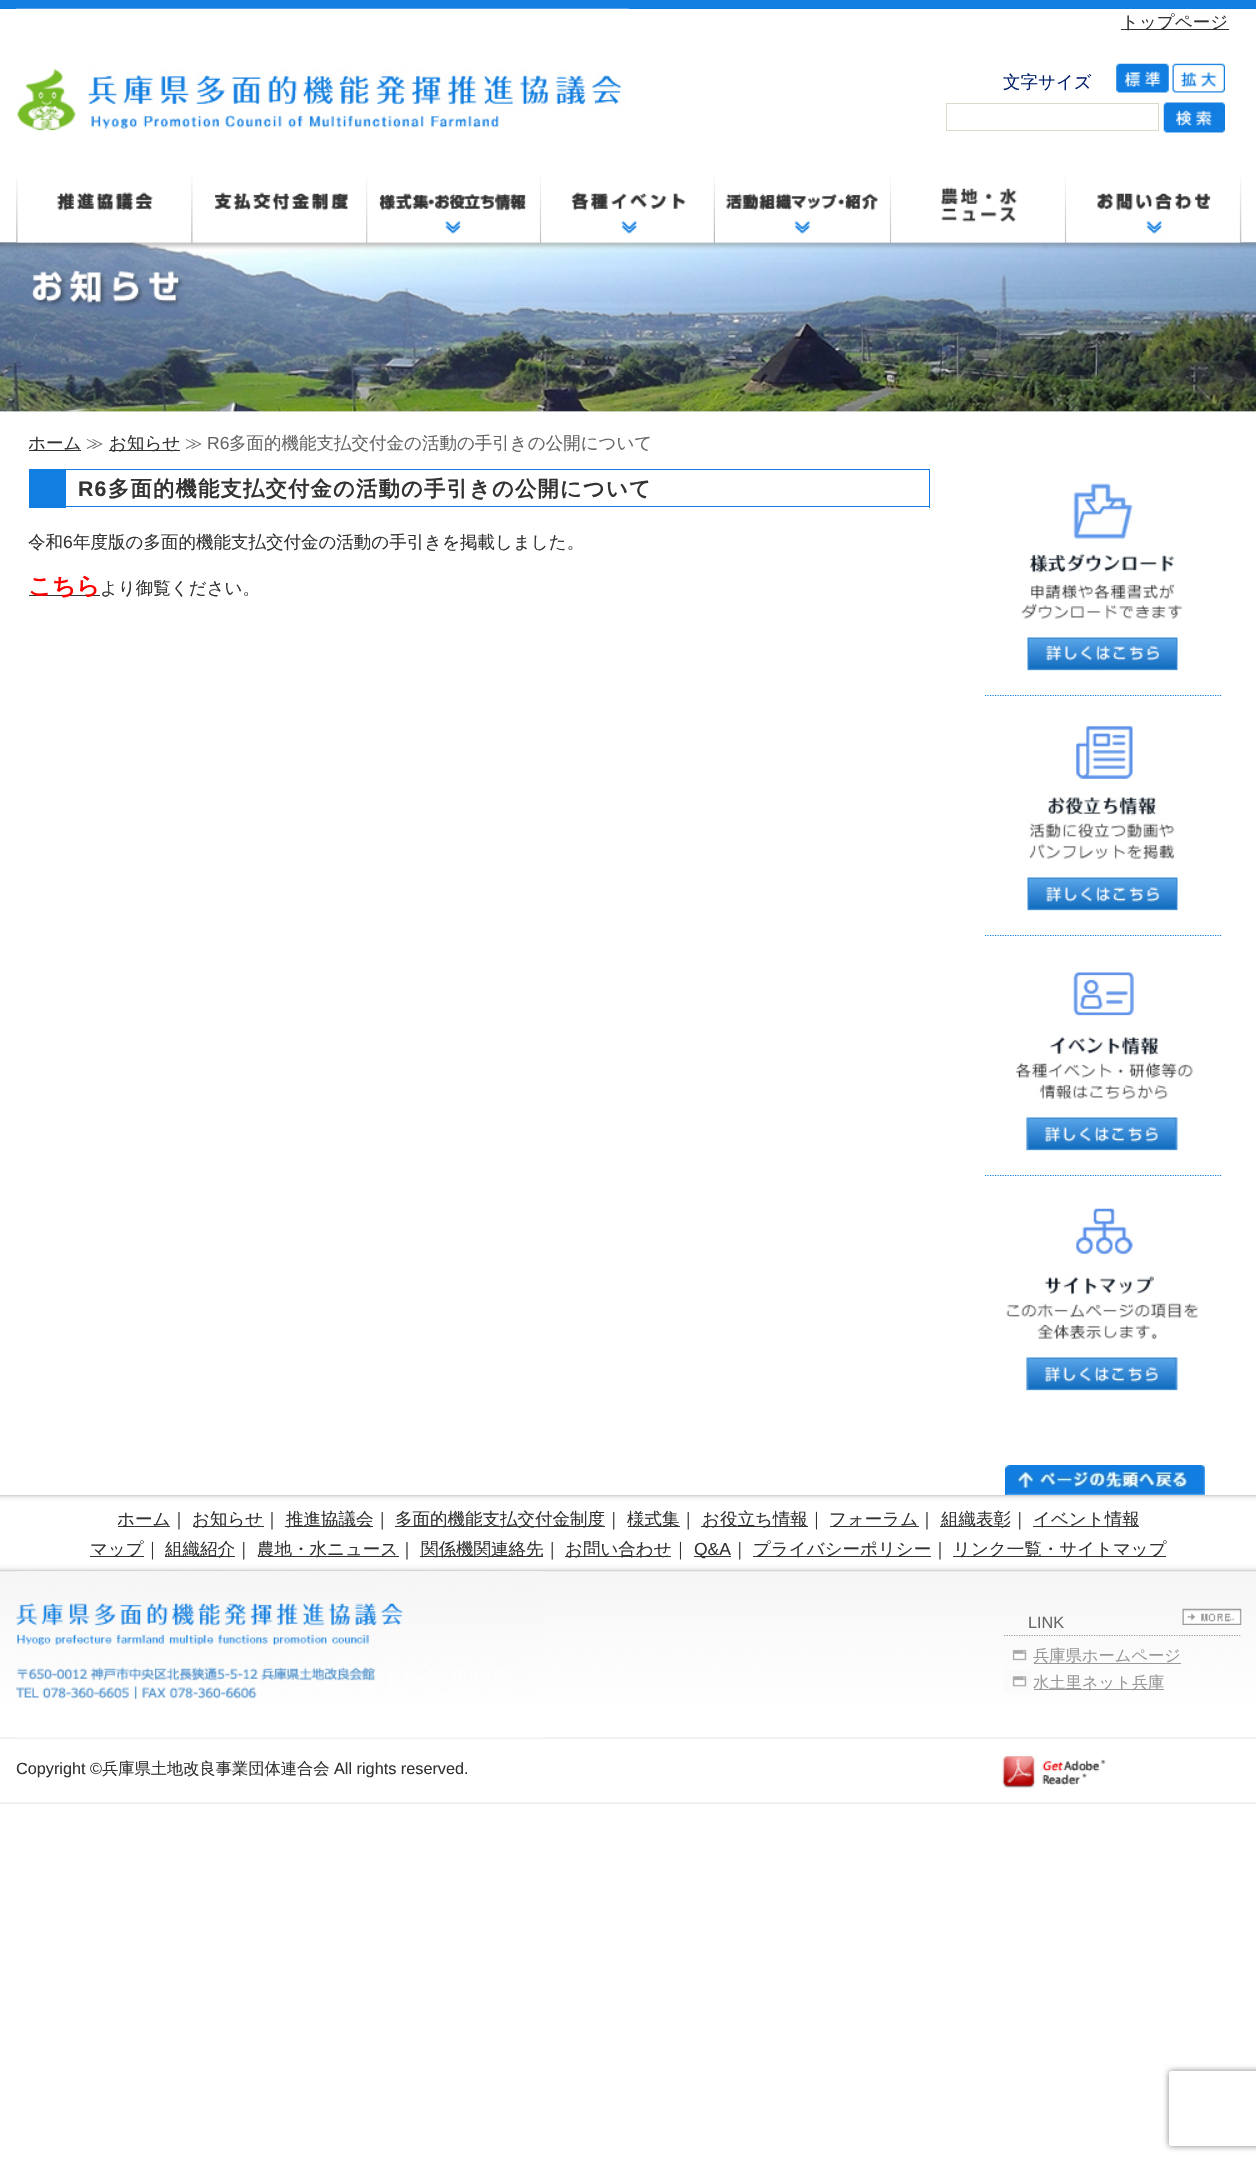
#include "include/core/SkBlurTypes.h"
#include "include/core/SkCanvas.h"
#include "include/core/SkData.h"
#include "include/core/SkFont.h"
#include "include/core/SkFontMgr.h"
#include "include/core/SkImage.h"
#include "include/core/SkMaskFilter.h"
#include "include/core/SkPaint.h"
#include "include/core/SkPathBuilder.h"
#include "include/core/SkTextBlob.h"
#include "include/effects/SkDashPathEffect.h"
#include "include/effects/SkGradientShader.h"
#include "include/utils/SkParsePath.h"

extern sk_sp<SkFontMgr> fontMgr;

void draw(SkCanvas* canvas) {
  SkPaint p;
  p.setAntiAlias(true);
  auto spacedText = [&](const char* s, float x, float y, const SkFont& font, const SkPaint& ink, float letter, float word) {
    std::vector<SkGlyphID> glyphs(font.countText(s, strlen(s), SkTextEncoding::kUTF8));
    std::vector<float> xs(glyphs.size());
    font.textToGlyphs(s, strlen(s), SkTextEncoding::kUTF8, glyphs);
    font.getXPos(glyphs, xs, x);
    float extra = 0;
    for (size_t i = 0; i < glyphs.size(); i++) {
      xs[i] += extra;
      extra += letter + word * (glyphs[i] == font.unicharToGlyph(' '));
    }
    canvas->drawTextBlob(SkTextBlob::MakeFromPosHGlyphs(glyphs, xs, y, font), 0, 0, ink);
  };
  canvas->clear(SK_ColorWHITE);
  p.setColor(SkColorSetRGB(18, 126, 225));
  canvas->drawRect(SkRect::MakeLTRB(0, 0, 1256, 9), p);
  canvas->drawImageRect(SkImages::DeferredFromEncodedData(SkData::MakeFromFileName("images/1.png")), SkRect::MakeLTRB(16, 8, 629, 131), SkSamplingOptions());
  p.setColor(SkColorSetRGB(51, 51, 51));
  canvas->drawRect(SkRect::MakeLTRB(1121, 29, 1229, 30), p);
  canvas->drawImageRect(SkImages::DeferredFromEncodedData(SkData::MakeFromFileName("images/2.png")), SkRect::MakeLTRB(1116, 63, 1169, 93), SkSamplingOptions());
  canvas->drawImageRect(SkImages::DeferredFromEncodedData(SkData::MakeFromFileName("images/3.png")), SkRect::MakeLTRB(1172, 63, 1225, 93), SkSamplingOptions());
  p.setStyle(SkPaint::kStroke_Style);
  p.setStrokeWidth(1);
  p.setColor(SkColorSetRGB(217, 217, 204));
  canvas->drawRect(SkRect::MakeLTRB(946.5f, 103.5f, 1158.5f, 130.5f), p);
  canvas->drawImageRect(SkImages::DeferredFromEncodedData(SkData::MakeFromFileName("images/4.png")), SkRect::MakeLTRB(1163, 102, 1225, 133), SkSamplingOptions());
  canvas->drawImageRect(SkImages::DeferredFromEncodedData(SkData::MakeFromFileName("images/12.png")), SkRect::MakeLTRB(0, 242, 1256, 412), SkSamplingOptions());
  canvas->drawImageRect(SkImages::DeferredFromEncodedData(SkData::MakeFromFileName("images/13.png")), SkRect::MakeLTRB(0, 242, 1256, 412), SkSamplingOptions());
  canvas->drawImageRect(SkImages::DeferredFromEncodedData(SkData::MakeFromFileName("images/5.png")), SkRect::MakeLTRB(16, 177, 192, 243), SkSamplingOptions());
  canvas->drawImageRect(SkImages::DeferredFromEncodedData(SkData::MakeFromFileName("images/6.png")), SkRect::MakeLTRB(191, 177, 368, 243), SkSamplingOptions());
  canvas->drawImageRect(SkImages::DeferredFromEncodedData(SkData::MakeFromFileName("images/7.png")), SkRect::MakeLTRB(367, 176, 542, 243), SkSamplingOptions());
  canvas->drawImageRect(SkImages::DeferredFromEncodedData(SkData::MakeFromFileName("images/8.png")), SkRect::MakeLTRB(541, 176, 715, 243), SkSamplingOptions());
  canvas->drawImageRect(SkImages::DeferredFromEncodedData(SkData::MakeFromFileName("images/9.png")), SkRect::MakeLTRB(715, 176, 892, 243), SkSamplingOptions());
  canvas->drawImageRect(SkImages::DeferredFromEncodedData(SkData::MakeFromFileName("images/10.png")), SkRect::MakeLTRB(891, 176, 1067, 243), SkSamplingOptions());
  canvas->drawImageRect(SkImages::DeferredFromEncodedData(SkData::MakeFromFileName("images/11.png")), SkRect::MakeLTRB(1066, 176, 1242, 243), SkSamplingOptions());
  p.setStyle(SkPaint::kFill_Style);
  p.setColor(SkColorSetRGB(51, 51, 51));
  canvas->drawRect(SkRect::MakeLTRB(29, 450, 81, 451), p);
  canvas->drawRect(SkRect::MakeLTRB(109, 450, 180, 451), p);
  p.setColor(SkColorSetRGB(18, 126, 225));
  canvas->drawRect(SkRect::MakeLTRB(66, 469, 930, 470), p);
  canvas->drawRect(SkRect::MakeLTRB(929, 469, 930, 508), p);
  canvas->drawRect(SkRect::MakeLTRB(66, 506, 930, 507), p);
  canvas->drawRect(SkRect::MakeLTRB(29, 469, 66, 508), p);
  p.setColor(SkColorSetRGB(51, 51, 51));
  canvas->drawRect(SkRect::MakeLTRB(29, 595, 100, 596), p);
  p.setStyle(SkPaint::kStroke_Style);
  p.setStrokeWidth(1.2f);
  p.setColor(SkColorSetRGB(18, 126, 225));
  p.setPathEffect(SkDashPathEffect::Make({{1.25f, 1.25f}}, 0));
  canvas->drawPath(SkPathBuilder().moveTo(985, 695.5f).lineTo(1222.5f, 695.5f).detach(), p);
  p.setPathEffect(nullptr);
  canvas->drawImageRect(SkImages::DeferredFromEncodedData(SkData::MakeFromFileName("images/14.png")), SkRect::MakeLTRB(1021, 483, 1183, 671), SkSamplingOptions());
  p.setPathEffect(SkDashPathEffect::Make({{1.25f, 1.25f}}, 0));
  canvas->drawPath(SkPathBuilder().moveTo(985, 935.5f).lineTo(1222.5f, 935.5f).detach(), p);
  p.setPathEffect(nullptr);
  canvas->drawImageRect(SkImages::DeferredFromEncodedData(SkData::MakeFromFileName("images/15.png")), SkRect::MakeLTRB(1027, 726, 1178, 911), SkSamplingOptions());
  p.setPathEffect(SkDashPathEffect::Make({{1.25f, 1.25f}}, 0));
  canvas->drawPath(SkPathBuilder().moveTo(985, 1175.5f).lineTo(1222.5f, 1175.5f).detach(), p);
  p.setPathEffect(nullptr);
  canvas->drawImageRect(SkImages::DeferredFromEncodedData(SkData::MakeFromFileName("images/16.png")), SkRect::MakeLTRB(1016, 972, 1193, 1151), SkSamplingOptions());
  canvas->drawImageRect(SkImages::DeferredFromEncodedData(SkData::MakeFromFileName("images/17.png")), SkRect::MakeLTRB(1006, 1208, 1198, 1391), SkSamplingOptions());
  canvas->drawImageRect(SkImages::DeferredFromEncodedData(SkData::MakeFromFileName("images/18.png")), SkRect::MakeLTRB(1005, 1465, 1205, 1495), SkSamplingOptions());
  canvas->drawImageRect(SkImages::DeferredFromEncodedData(SkData::MakeFromFileName("images/19.png")), SkRect::MakeLTRB(0, 1495, 1256, 1804), SkSamplingOptions());
  p.setStyle(SkPaint::kFill_Style);
  p.setColor(SkColorSetRGB(51, 51, 51));
  canvas->drawRect(SkRect::MakeLTRB(118, 1526, 170, 1527), p);
  canvas->drawRect(SkRect::MakeLTRB(193, 1526, 264, 1527), p);
  canvas->drawRect(SkRect::MakeLTRB(285, 1526, 373, 1527), p);
  canvas->drawRect(SkRect::MakeLTRB(395, 1526, 605, 1527), p);
  canvas->drawRect(SkRect::MakeLTRB(628, 1526, 680, 1527), p);
  canvas->drawRect(SkRect::MakeLTRB(701, 1526, 808, 1527), p);
  canvas->drawRect(SkRect::MakeLTRB(830, 1526, 919, 1527), p);
  canvas->drawRect(SkRect::MakeLTRB(940, 1526, 1010, 1527), p);
  canvas->drawRect(SkRect::MakeLTRB(1033, 1526, 1139, 1527), p);
  canvas->drawRect(SkRect::MakeLTRB(90, 1556, 144, 1557), p);
  canvas->drawRect(SkRect::MakeLTRB(165, 1556, 235, 1557), p);
  canvas->drawRect(SkRect::MakeLTRB(258, 1556, 399, 1557), p);
  canvas->drawRect(SkRect::MakeLTRB(420, 1556, 543, 1557), p);
  canvas->drawRect(SkRect::MakeLTRB(565, 1556, 671, 1557), p);
  canvas->drawRect(SkRect::MakeLTRB(694, 1556, 731, 1557), p);
  canvas->drawRect(SkRect::MakeLTRB(753, 1556, 931, 1557), p);
  canvas->drawRect(SkRect::MakeLTRB(953, 1556, 1166, 1557), p);
  canvas->drawImageRect(SkImages::DeferredFromEncodedData(SkData::MakeFromFileName("images/20.png")), SkRect::MakeLTRB(16, 1571, 543, 1738), SkSamplingOptions());
  p.setStyle(SkPaint::kStroke_Style);
  p.setColor(SkColorSetRGB(153, 153, 153));
  p.setPathEffect(SkDashPathEffect::Make({{1.25f, 1.25f}}, 0));
  canvas->drawPath(SkPathBuilder().moveTo(1004, 1635.5f).lineTo(1241, 1635.5f).detach(), p);
  p.setPathEffect(nullptr);
  canvas->drawImageRect(SkImages::DeferredFromEncodedData(SkData::MakeFromFileName("images/21.png")), SkRect::MakeLTRB(1182, 1608, 1242, 1625), SkSamplingOptions());
  canvas->drawImageRect(SkImages::DeferredFromEncodedData(SkData::MakeFromFileName("images/22.png")), SkRect::MakeLTRB(1004, 1644, 1027, 1665), SkSamplingOptions());
  p.setStyle(SkPaint::kFill_Style);
  canvas->drawRect(SkRect::MakeLTRB(1034, 1663, 1181, 1664), p);
  canvas->drawImageRect(SkImages::DeferredFromEncodedData(SkData::MakeFromFileName("images/23.png")), SkRect::MakeLTRB(1004, 1669, 1031, 1694), SkSamplingOptions());
  canvas->drawRect(SkRect::MakeLTRB(1034, 1689, 1164, 1690), p);
  canvas->drawImageRect(SkImages::DeferredFromEncodedData(SkData::MakeFromFileName("images/24.png")), SkRect::MakeLTRB(1002, 1756, 1106, 1788), SkSamplingOptions());
  canvas->save();
  canvas->clipPath(SkPathBuilder(SkPathFillType::kEvenOdd).moveTo(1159, 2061).lineTo(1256, 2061).lineTo(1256, 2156).lineTo(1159, 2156).close().moveTo(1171.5f, 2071).lineTo(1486.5f, 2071).cubicTo(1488, 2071, 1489, 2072, 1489, 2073.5f).lineTo(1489, 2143.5f).cubicTo(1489, 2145, 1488, 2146, 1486.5f, 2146).lineTo(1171.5f, 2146).cubicTo(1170, 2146, 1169, 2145, 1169, 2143.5f).lineTo(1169, 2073.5f).cubicTo(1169, 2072, 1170, 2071, 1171.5f, 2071).close().detach(), true);
  p.setColor(SkColorSetRGB(128, 128, 128));
  p.setMaskFilter(SkMaskFilter::MakeBlur(kNormal_SkBlurStyle, 3));
  canvas->drawRoundRect(SkRect::MakeLTRB(1169, 2071, 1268, 2146), 2.5f, 2.5f, p);
  p.setMaskFilter(nullptr);
  canvas->restore();
  SkFont font1(fontMgr->matchFamilyStyle("WenQuanYi Zen Hei", SkFontStyle(500, SkFontStyle::kNormal_Width, SkFontStyle::kUpright_Slant)), 17.5f);
  font1.setSubpixel(true);
  p.setColor(SkColorSetRGB(51, 51, 51));
  canvas->drawString("トップページ", 1121, 28, font1, p);
  p.setColor(SkColorSetRGB(0, 31, 106));
  canvas->drawString("文字サイズ", 1003, 88, font1, p);
  p.setColor(SkColorSetRGB(51, 51, 51));
  canvas->drawString("ホーム", 28, 449, font1, p);
  p.setColor(SkColorSetRGB(102, 102, 102));
  canvas->drawString("≫", 86, 449, font1, p);
  p.setColor(SkColorSetRGB(51, 51, 51));
  canvas->drawString("お知らせ", 109, 449, font1, p);
  p.setColor(SkColorSetRGB(102, 102, 102));
  canvas->drawString("≫", 185, 449, font1, p);
  SkFont font2(fontMgr->matchFamilyStyle("Liberation Sans", SkFontStyle::Normal()), 17.5f);
  font2.setSubpixel(true);
  canvas->drawString("R6", 207, 449, font2, p);
  canvas->drawString("多面的機能支払交付金の活動の手引きの公開について", 229, 449, font1, p);
  SkFont font3(fontMgr->matchFamilyStyle("Liberation Sans", SkFontStyle::Bold()), 21.25f);
  font3.setSubpixel(true);
  p.setColor(SkColorSetRGB(51, 51, 51));
  spacedText("R6", 78, 496, font3, p, 1.25f, 0);
  SkFont font4(fontMgr->matchFamilyStyle("WenQuanYi Zen Hei", SkFontStyle::Bold()), 21.25f);
  font4.setSubpixel(true);
  spacedText("多面的機能支払交付金の活動の手引きの公開について", 108, 496, font4, p, 1.25f, 0);
  canvas->drawString("令和", 28, 548, font1, p);
  canvas->drawString("6", 63, 548, font2, p);
  canvas->drawString("年度版の多面的機能支払交付金の活動の手引きを掲載しました。", 73, 548, font1, p);
  SkFont font5(fontMgr->matchFamilyStyle("WenQuanYi Zen Hei", SkFontStyle::Bold()), 23.5f);
  font5.setSubpixel(true);
  p.setColor(SkColorSetRGB(255, 0, 0));
  canvas->drawString("こちら", 28, 594, font5, p);
  p.setColor(SkColorSetRGB(51, 51, 51));
  canvas->drawString("より御覧ください。", 100, 594, font1, p);
  canvas->drawString("ホーム｜", 117, 1525, font1, p);
  canvas->drawString("お知らせ｜", 192, 1525, font1, p);
  canvas->drawString("推進協議会｜", 286, 1525, font1, p);
  canvas->drawString("多面的機能支払交付金制度｜", 395, 1525, font1, p);
  canvas->drawString("様式集｜", 627, 1525, font1, p);
  canvas->drawString("お役立ち情報｜", 702, 1525, font1, p);
  canvas->drawString("フォーラム｜", 829, 1525, font1, p);
  canvas->drawString("組織表彰｜", 941, 1525, font1, p);
  canvas->drawString("イベント情報", 1033, 1525, font1, p);
  canvas->drawString("マップ｜", 90, 1555, font1, p);
  canvas->drawString("組織紹介｜", 165, 1555, font1, p);
  canvas->drawString("農地・水ニュース｜", 257, 1555, font1, p);
  canvas->drawString("関係機関連絡先｜", 421, 1555, font1, p);
  canvas->drawString("お問い合わせ｜", 565, 1555, font1, p);
  canvas->drawString("Q&A", 694, 1555, font2, p);
  canvas->drawString("｜", 731, 1555, font1, p);
  canvas->drawString("プライバシーポリシー｜", 753, 1555, font1, p);
  canvas->drawString("リンク一覧・サイトマップ", 953, 1555, font1, p);
  SkFont font6(fontMgr->matchFamilyStyle("Liberation Sans", SkFontStyle::Normal()), 16.25f);
  font6.setSubpixel(true);
  p.setColor(SkColorSetRGB(102, 102, 102));
  canvas->drawString("LINK", 1028, 1628, font6, p);
  SkFont font7(fontMgr->matchFamilyStyle("WenQuanYi Zen Hei", SkFontStyle(500, SkFontStyle::kNormal_Width, SkFontStyle::kUpright_Slant)), 16.25f);
  font7.setSubpixel(true);
  p.setColor(SkColorSetRGB(153, 153, 153));
  canvas->drawString("兵庫県ホームページ", 1033, 1661, font7, p);
  canvas->drawString("水土里ネット兵庫", 1033, 1688, font7, p);
  p.setColor(SkColorSetRGB(51, 51, 51));
  canvas->drawString("Copyright ©", 16, 1774, font6, p);
  canvas->drawString("兵庫県土地改良事業団体連合会", 102, 1774, font7, p);
  canvas->drawString("All rights reserved.", 334, 1774, font6, p);
}
